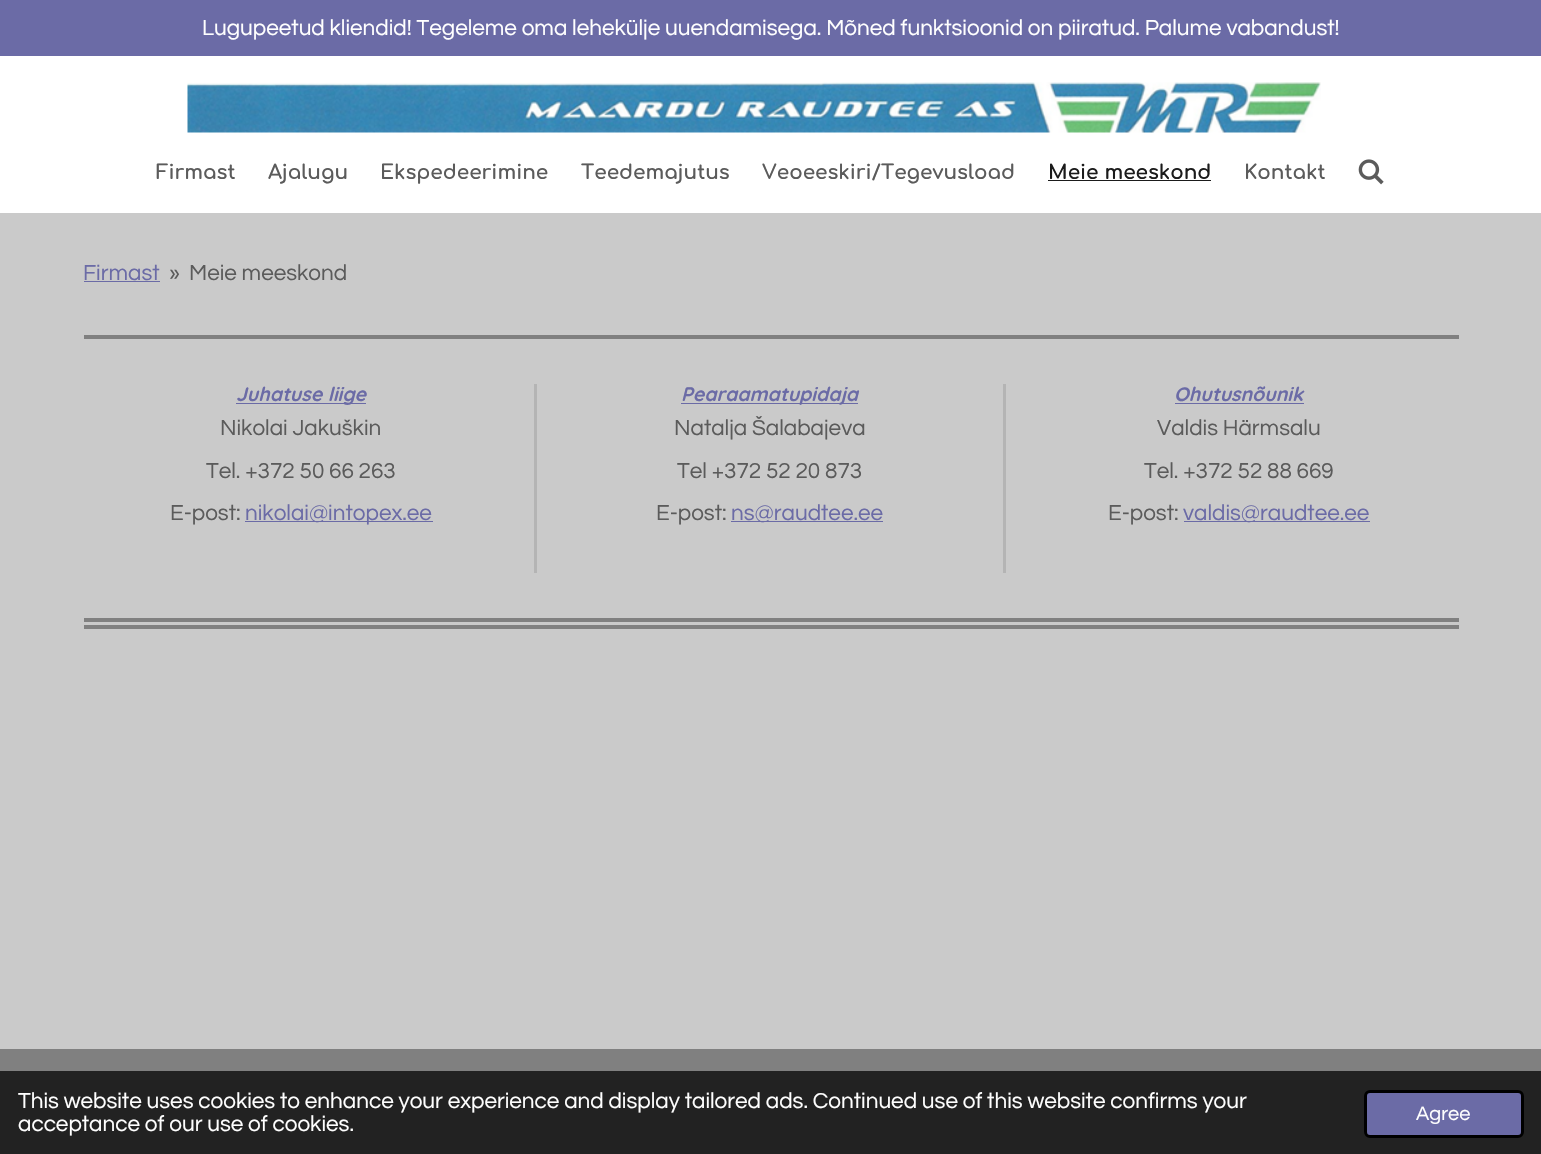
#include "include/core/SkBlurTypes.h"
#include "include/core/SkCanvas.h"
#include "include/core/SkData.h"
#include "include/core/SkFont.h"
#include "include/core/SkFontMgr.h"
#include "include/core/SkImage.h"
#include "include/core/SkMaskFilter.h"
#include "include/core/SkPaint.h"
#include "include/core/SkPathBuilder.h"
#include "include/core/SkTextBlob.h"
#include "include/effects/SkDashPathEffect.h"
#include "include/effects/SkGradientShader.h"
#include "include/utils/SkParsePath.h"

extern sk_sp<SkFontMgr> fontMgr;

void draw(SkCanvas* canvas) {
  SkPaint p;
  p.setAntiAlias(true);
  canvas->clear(SkColorSetRGB(202, 202, 202));
  p.setColor(SkColorSetRGB(107, 107, 166));
  canvas->drawRect(SkRect::MakeLTRB(0, 0, 1541, 56), p);
  p.setColor(SK_ColorWHITE);
  canvas->drawRect(SkRect::MakeLTRB(0, 56, 1541, 213), p);
  canvas->drawImageRect(SkImages::DeferredFromEncodedData(SkData::MakeFromFileName("images/1.png")), SkRect::MakeLTRB(187, 82, 1321, 133), SkSamplingOptions());
  p.setColor(SkColorSetRGB(27, 27, 27));
  canvas->drawRect(SkRect::MakeLTRB(1048, 180, 1211, 181), p);
  canvas->drawImageRect(SkImages::DeferredFromEncodedData(SkData::MakeFromFileName("images/2.png")), SkRect::MakeLTRB(1358, 159, 1384, 185), SkSamplingOptions());
  p.setColor(SkColorSetRGB(107, 107, 166));
  canvas->drawRect(SkRect::MakeLTRB(84, 281, 160, 282), p);
  p.setColor(SkColorSetRGB(128, 128, 128));
  canvas->drawRect(SkRect::MakeLTRB(84, 335, 1459, 339), p);
  p.setColor(SkColorSetRGB(180, 180, 180));
  canvas->drawRect(SkRect::MakeLTRB(534, 384, 537, 573), p);
  p.setColor(SkColorSetRGB(107, 107, 166));
  canvas->drawRect(SkRect::MakeLTRB(236, 403, 366, 404), p);
  canvas->drawRect(SkRect::MakeLTRB(245, 521, 433, 522), p);
  p.setColor(SkColorSetRGB(180, 180, 180));
  canvas->drawRect(SkRect::MakeLTRB(1003, 384, 1006, 573), p);
  p.setColor(SkColorSetRGB(107, 107, 166));
  canvas->drawRect(SkRect::MakeLTRB(681, 403, 858, 404), p);
  canvas->drawRect(SkRect::MakeLTRB(731, 521, 883, 522), p);
  canvas->drawRect(SkRect::MakeLTRB(1175, 403, 1304, 404), p);
  canvas->drawRect(SkRect::MakeLTRB(1184, 521, 1370, 522), p);
  p.setColor(SkColorSetRGB(128, 128, 128));
  canvas->drawRect(SkRect::MakeLTRB(84, 618, 1459, 622), p);
  canvas->drawRect(SkRect::MakeLTRB(84, 625, 1459, 629), p);
  canvas->drawRect(SkRect::MakeLTRB(0, 1049, 1541, 1071), p);
  p.setColor(SkColorSetRGB(34, 34, 34));
  canvas->drawRect(SkRect::MakeLTRB(0, 1071, 1541, 1154), p);
  p.setColor(SkColorSetRGB(107, 107, 166));
  canvas->drawRoundRect(SkRect::MakeLTRB(1365.5f, 1091.5f, 1522.5f, 1136.5f), 4.5f, 4.5f, p);
  p.setStyle(SkPaint::kStroke_Style);
  p.setStrokeWidth(3);
  p.setColor(SK_ColorBLACK);
  canvas->drawRoundRect(SkRect::MakeLTRB(1365.5f, 1091.5f, 1522.5f, 1136.5f), 4.5f, 4.5f, p);
  SkFont font1(fontMgr->matchFamilyStyle("Questrial", SkFontStyle::Normal()), 22.5f);
  font1.setSubpixel(true);
  p.setStyle(SkPaint::kFill_Style);
  p.setColor(SK_ColorWHITE);
  canvas->drawString("Lugupeetud kliendid! Tegeleme oma lehekülje uuendamisega. Mõned funktsioonid on piiratud. Palume vabandust!", 202, 35, font1, p);
  SkFont font2(fontMgr->matchFamilyStyle("Comfortaa", SkFontStyle::Bold()), 20);
  font2.setSubpixel(true);
  p.setColor(SkColorSetRGB(91, 91, 91));
  canvas->drawString("Firmast", 156, 179, font2, p);
  canvas->drawString("Ajalugu", 268, 179, font2, p);
  canvas->drawString("Ekspedeerimine", 380, 179, font2, p);
  canvas->drawString("Teedemajutus", 581, 179, font2, p);
  canvas->drawString("Veoeeskiri/Tegevusload", 762, 179, font2, p);
  p.setColor(SkColorSetRGB(27, 27, 27));
  canvas->drawString("Meie meeskond", 1048, 179, font2, p);
  p.setColor(SkColorSetRGB(91, 91, 91));
  canvas->drawString("Kontakt", 1244, 179, font2, p);
  p.setColor(SkColorSetRGB(107, 107, 166));
  canvas->drawString("Firmast", 83, 280, font1, p);
  p.setColor(SkColorSetRGB(91, 91, 91));
  canvas->drawString("»", 169, 280, font1, p);
  canvas->drawString("Meie meeskond", 189, 280, font1, p);
  SkFont font3(fontMgr->matchFamilyStyle("Quicksand", SkFontStyle::BoldItalic()), 19.5f);
  font3.setSubpixel(true);
  p.setColor(SkColorSetRGB(107, 107, 166));
  canvas->drawString("Juhatuse liige", 236, 401, font3, p);
  p.setColor(SkColorSetRGB(91, 91, 91));
  canvas->drawString("Nikolai Jakuškin", 220, 435, font1, p);
  canvas->drawString("Tel. +372 50 66 263", 206, 478, font1, p);
  canvas->drawString("E-post:", 170, 520, font1, p);
  p.setColor(SkColorSetRGB(107, 107, 166));
  canvas->drawString("nikolai@intopex.ee", 245, 520, font1, p);
  canvas->drawString("Pearaamatupidaja", 681, 401, font3, p);
  p.setColor(SkColorSetRGB(91, 91, 91));
  canvas->drawString("Natalja Šalabajeva", 674, 435, font1, p);
  canvas->drawString("Tel +372 52 20 873", 677, 478, font1, p);
  canvas->drawString("E-post:", 656, 520, font1, p);
  p.setColor(SkColorSetRGB(107, 107, 166));
  canvas->drawString("ns@raudtee.ee", 731, 520, font1, p);
  canvas->drawString("Ohutusnõunik", 1174, 401, font3, p);
  p.setColor(SkColorSetRGB(91, 91, 91));
  canvas->drawString("Valdis Härmsalu", 1157, 435, font1, p);
  canvas->drawString("Tel. +372 52 88 669", 1144, 478, font1, p);
  canvas->drawString("E-post:", 1108, 520, font1, p);
  p.setColor(SkColorSetRGB(107, 107, 166));
  canvas->drawString("valdis@raudtee.ee", 1183, 520, font1, p);
  p.setColor(SK_ColorWHITE);
  canvas->drawString("This website uses cookies to enhance your experience and display tailored ads. Continued use of this website confirms your", 18, 1108, font1, p);
  canvas->drawString("acceptance of our use of cookies.", 18, 1131, font1, p);
  SkFont font4(fontMgr->matchFamilyStyle("Questrial", SkFontStyle::Normal()), 20);
  font4.setSubpixel(true);
  canvas->drawString("Agree", 1416, 1120, font4, p);
}
